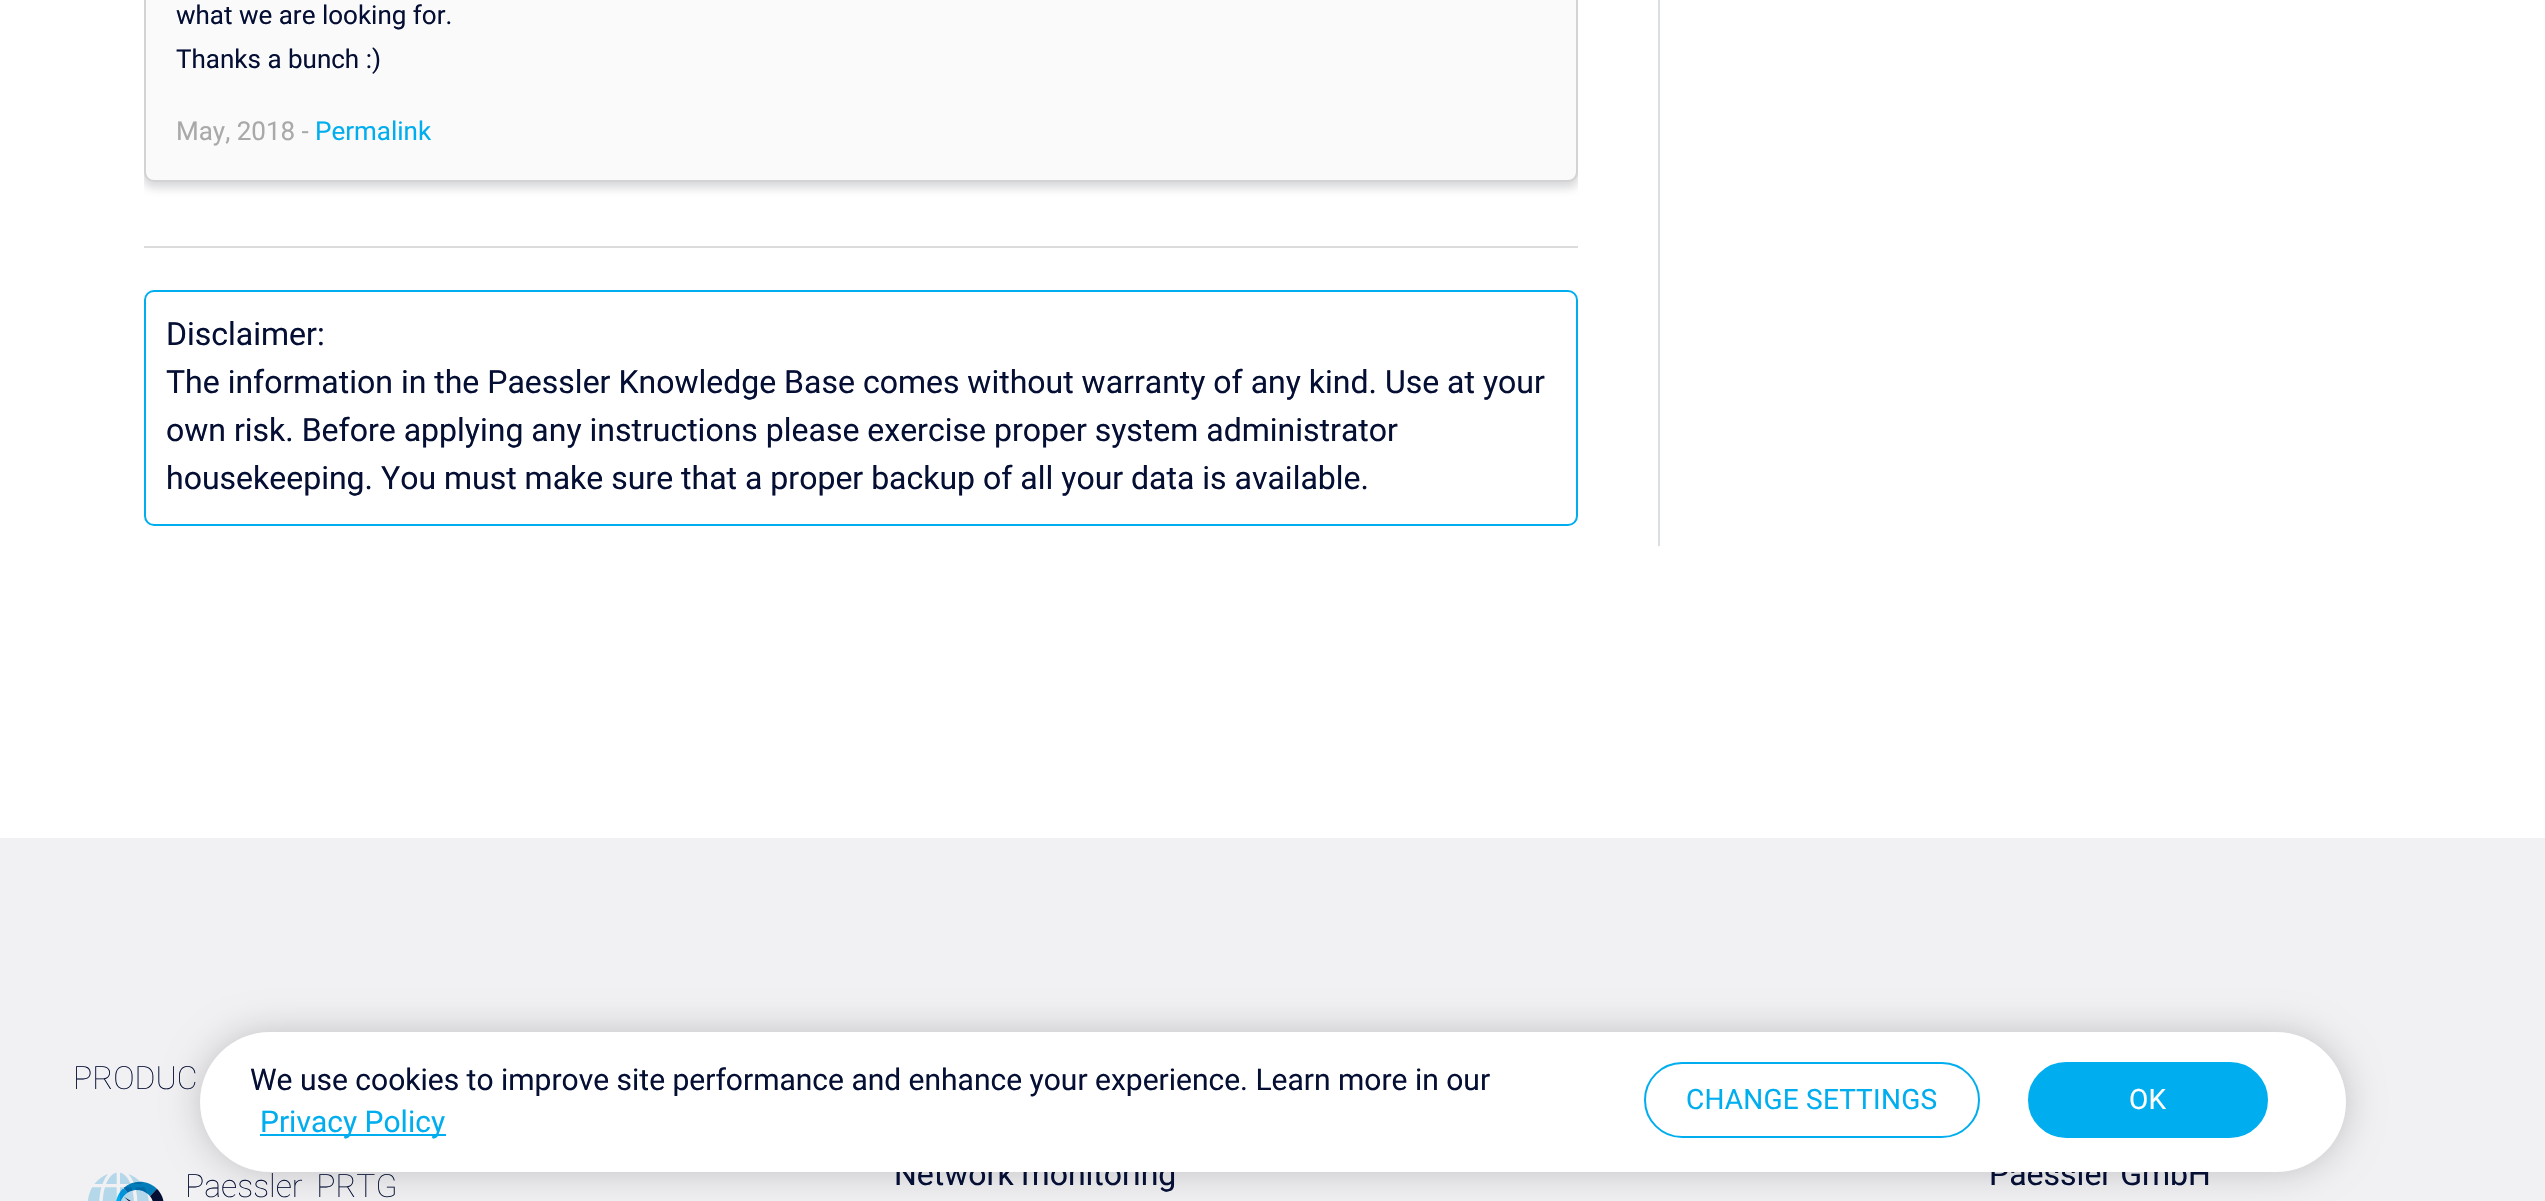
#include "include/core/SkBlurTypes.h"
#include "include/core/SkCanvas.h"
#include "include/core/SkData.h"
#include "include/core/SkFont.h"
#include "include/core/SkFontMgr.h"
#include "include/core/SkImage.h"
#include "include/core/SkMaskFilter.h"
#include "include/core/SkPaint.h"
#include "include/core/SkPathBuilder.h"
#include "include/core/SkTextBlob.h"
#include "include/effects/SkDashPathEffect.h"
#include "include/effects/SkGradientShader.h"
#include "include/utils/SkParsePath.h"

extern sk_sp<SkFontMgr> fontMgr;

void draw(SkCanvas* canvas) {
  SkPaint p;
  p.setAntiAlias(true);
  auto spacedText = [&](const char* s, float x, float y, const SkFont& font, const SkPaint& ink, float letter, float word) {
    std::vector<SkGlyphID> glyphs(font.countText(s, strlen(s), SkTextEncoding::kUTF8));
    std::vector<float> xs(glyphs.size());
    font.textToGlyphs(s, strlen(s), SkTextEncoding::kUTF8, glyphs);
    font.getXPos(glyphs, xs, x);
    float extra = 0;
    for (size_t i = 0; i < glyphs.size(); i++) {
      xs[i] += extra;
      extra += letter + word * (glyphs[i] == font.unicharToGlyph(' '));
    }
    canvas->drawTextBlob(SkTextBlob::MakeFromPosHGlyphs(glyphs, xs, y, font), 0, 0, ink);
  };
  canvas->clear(SK_ColorWHITE);
  p.setColor(SkColorSetRGB(218, 223, 227));
  canvas->drawRect(SkRect::MakeLTRB(1658, 0, 1660, 546), p);
  canvas->save();
  canvas->clipRect(SkRect::MakeLTRB(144, 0, 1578, 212));
  p.setColor(SkColorSetARGB(51, 56, 59, 71));
  p.setMaskFilter(SkMaskFilter::MakeBlur(kNormal_SkBlurStyle, 5));
  canvas->drawRoundRect(SkRect::MakeLTRB(142, -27, 1580, 188), 12, 12, p);
  p.setMaskFilter(nullptr);
  canvas->restore();
  p.setColor(SkColorSetRGB(250, 250, 250));
  canvas->drawRoundRect(SkRect::MakeLTRB(145, -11, 1577, 181), 9, 9, p);
  p.setStyle(SkPaint::kStroke_Style);
  p.setStrokeWidth(2);
  p.setColor(SkColorSetRGB(211, 211, 211));
  canvas->drawRoundRect(SkRect::MakeLTRB(145, -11, 1577, 181), 9, 9, p);
  p.setStyle(SkPaint::kFill_Style);
  p.setColor(SkColorSetRGB(220, 220, 220));
  canvas->drawRect(SkRect::MakeLTRB(144, 246, 1578, 248), p);
  p.setStyle(SkPaint::kStroke_Style);
  p.setColor(SkColorSetRGB(0, 174, 239));
  canvas->drawRoundRect(SkRect::MakeLTRB(145, 291, 1577, 525), 9, 9, p);
  p.setStyle(SkPaint::kFill_Style);
  p.setColor(SkColorSetRGB(241, 241, 243));
  canvas->drawRect(SkRect::MakeLTRB(0, 838, 2545, 1201), p);
  canvas->drawImageRect(SkImages::DeferredFromEncodedData(SkData::MakeFromFileName("images/1.png")), SkRect::MakeLTRB(87, 1172, 164, 1201), SkSamplingOptions());
  p.setColor(SkColorSetARGB(51, 0, 0, 0));
  p.setMaskFilter(SkMaskFilter::MakeBlur(kNormal_SkBlurStyle, 18));
  canvas->drawRoundRect(SkRect::MakeLTRB(200, 1032, 2346, 1172), 70, 70, p);
  p.setMaskFilter(nullptr);
  SkFont font1(fontMgr->matchFamilyStyle("Roboto", SkFontStyle::Normal()), 26);
  font1.setSubpixel(true);
  p.setColor(SkColorSetRGB(5, 15, 52));
  canvas->drawString("what we are looking for.", 176, 24, font1, p);
  canvas->drawString("Thanks a bunch :)", 176, 68, font1, p);
  p.setColor(SkColorSetRGB(169, 169, 169));
  canvas->drawString("May, 2018 -", 176, 140, font1, p);
  p.setColor(SkColorSetRGB(0, 174, 239));
  canvas->drawString("Permalink", 315, 140, font1, p);
  SkFont font2(fontMgr->matchFamilyStyle("Roboto", SkFontStyle::Normal()), 32);
  font2.setSubpixel(true);
  p.setColor(SkColorSetRGB(5, 15, 52));
  canvas->drawString("Disclaimer:", 166, 345, font2, p);
  canvas->drawString("The information in the Paessler Knowledge Base comes without warranty of any kind. Use at your", 166, 393, font2, p);
  canvas->drawString("own risk. Before applying any instructions please exercise proper system administrator", 166, 441, font2, p);
  canvas->drawString("housekeeping. You must make sure that a proper backup of all your data is available.", 166, 489, font2, p);
  SkFont font3(fontMgr->matchFamilyStyle("Roboto", SkFontStyle(100, SkFontStyle::kNormal_Width, SkFontStyle::kUpright_Slant)), 32);
  font3.setSubpixel(true);
  canvas->drawString("PRODUC", 73, 1089, font3, p);
  spacedText("Paessler PRTG", 185, 1197, font3, p, 0, 6);
  canvas->drawString("Network monitoring", 894, 1185, font2, p);
  canvas->drawString("Paessler GmbH", 1989, 1185, font2, p);
  p.setColor(SK_ColorWHITE);
  canvas->drawRoundRect(SkRect::MakeLTRB(200, 1032, 2346, 1172), 70, 70, p);
  SkFont font4(fontMgr->matchFamilyStyle("Roboto", SkFontStyle::Normal()), 30);
  font4.setSubpixel(true);
  p.setColor(SkColorSetRGB(5, 15, 52));
  canvas->drawString("We use cookies to improve site performance and enhance your experience. Learn more in our", 250, 1090, font4, p);
  p.setColor(SkColorSetRGB(0, 174, 239));
  canvas->drawRect(SkRect::MakeLTRB(260, 1134, 446, 1136), p);
  canvas->drawString("Privacy Policy", 260, 1132, font4, p);
  p.setStyle(SkPaint::kStroke_Style);
  canvas->drawRoundRect(SkRect::MakeLTRB(1645, 1063, 1979, 1137), 37, 37, p);
  SkFont font5(fontMgr->matchFamilyStyle("Roboto", SkFontStyle::Normal()), 28);
  font5.setSubpixel(true);
  p.setStyle(SkPaint::kFill_Style);
  spacedText("CHANGE SETTINGS", 1686, 1109, font5, p, 0.25f, 0);
  canvas->drawRoundRect(SkRect::MakeLTRB(2029, 1063, 2267, 1137), 37, 37, p);
  p.setStyle(SkPaint::kStroke_Style);
  canvas->drawRoundRect(SkRect::MakeLTRB(2029, 1063, 2267, 1137), 37, 37, p);
  p.setStyle(SkPaint::kFill_Style);
  p.setColor(SK_ColorWHITE);
  spacedText("OK", 2129, 1109, font5, p, 0.25f, 0);
}
